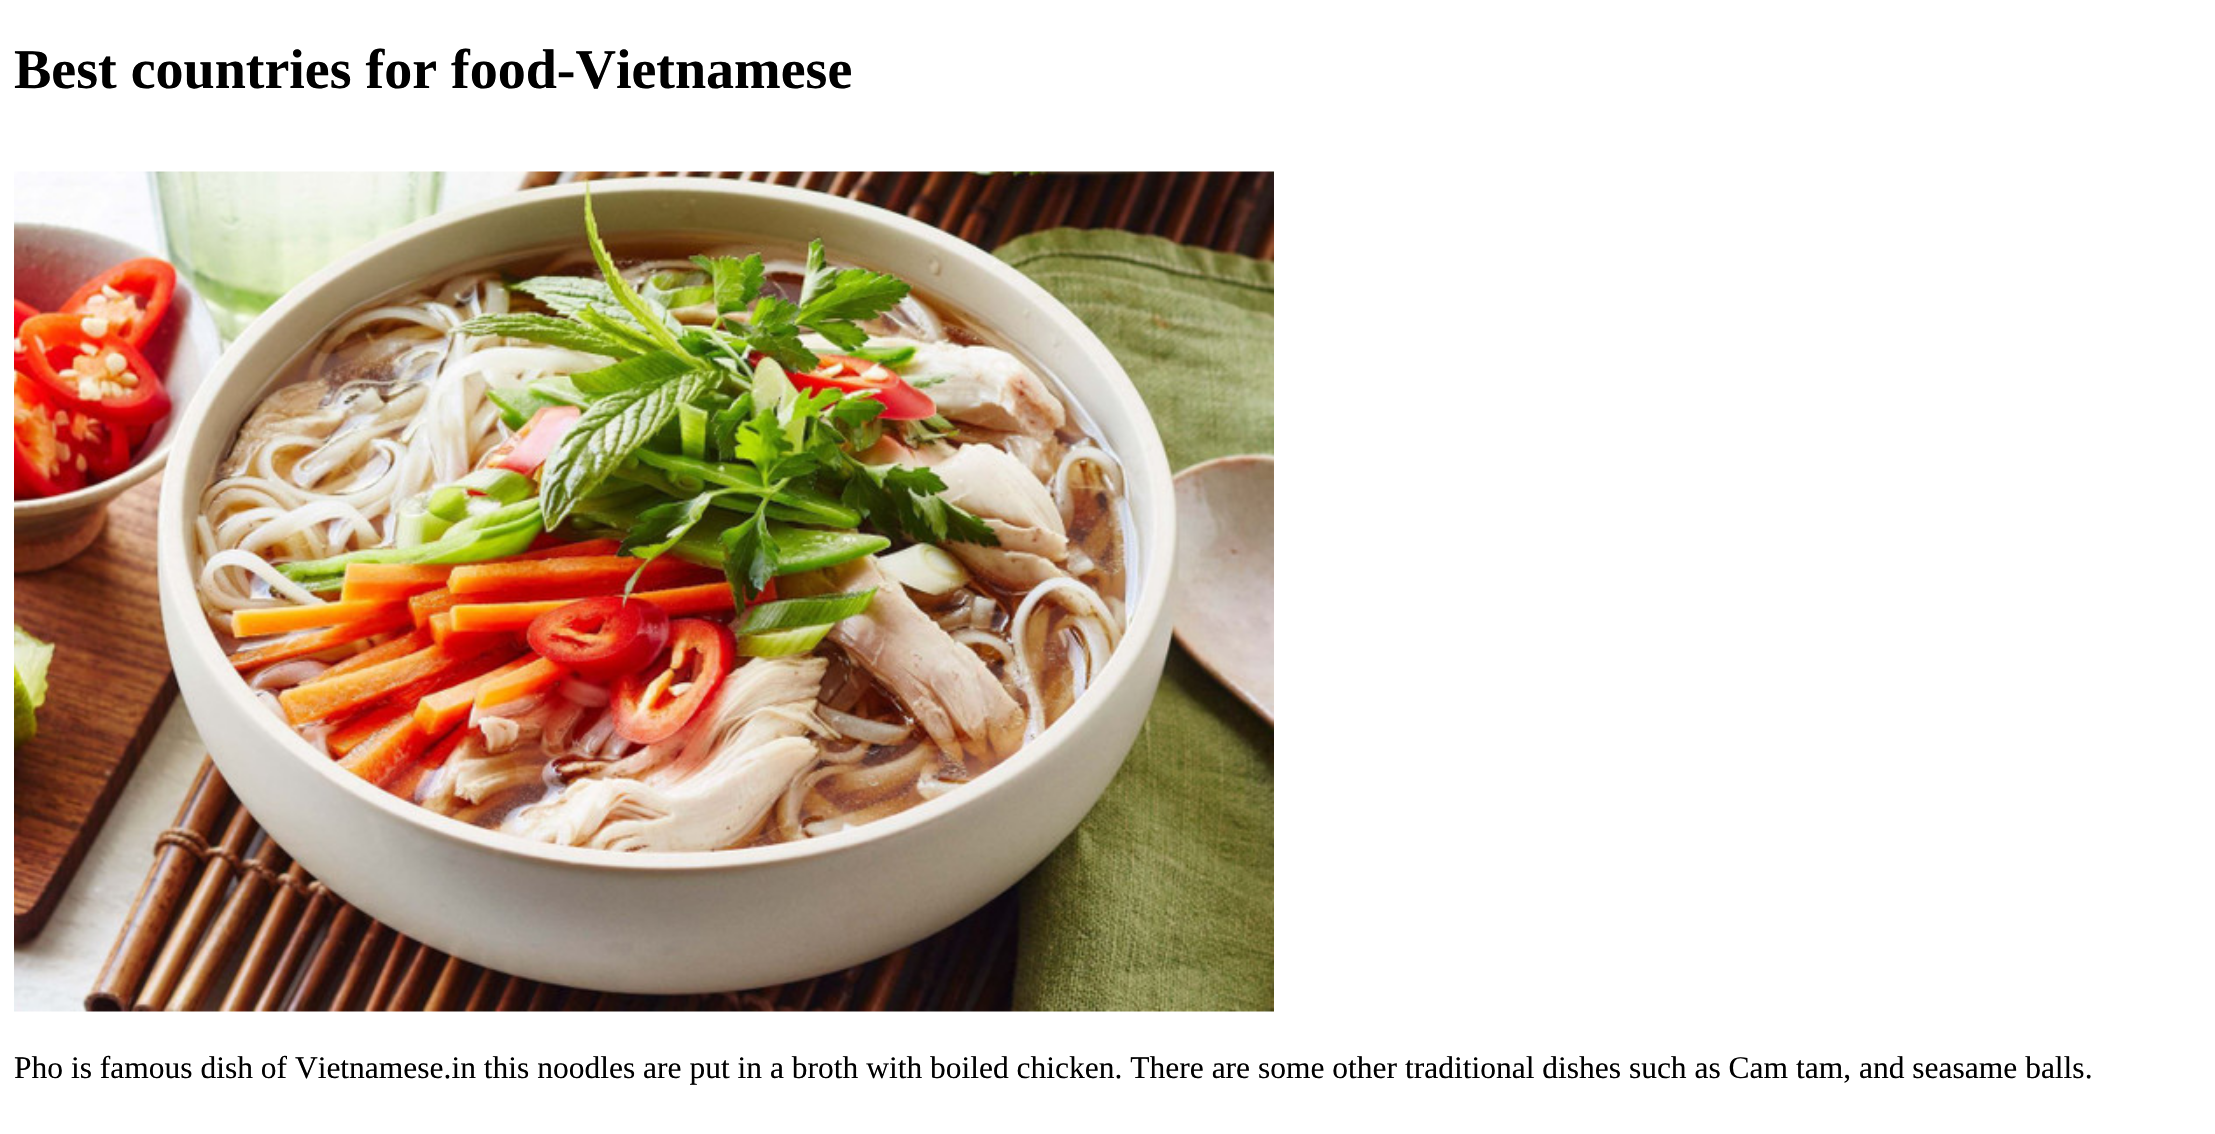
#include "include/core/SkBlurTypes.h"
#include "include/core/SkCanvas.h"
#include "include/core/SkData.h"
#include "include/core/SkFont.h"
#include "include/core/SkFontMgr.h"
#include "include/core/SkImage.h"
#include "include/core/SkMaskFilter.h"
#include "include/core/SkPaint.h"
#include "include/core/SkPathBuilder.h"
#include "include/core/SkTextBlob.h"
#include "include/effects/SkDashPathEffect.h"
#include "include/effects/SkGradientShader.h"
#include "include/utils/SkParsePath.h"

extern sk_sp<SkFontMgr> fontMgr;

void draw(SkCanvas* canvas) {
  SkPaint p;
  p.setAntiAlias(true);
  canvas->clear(SK_ColorWHITE);
  canvas->drawImageRect(SkImages::DeferredFromEncodedData(SkData::MakeFromFileName("images/1.png")), SkRect::MakeLTRB(14, 171, 1274, 1012), SkSamplingOptions());
  SkFont font1(fontMgr->matchFamilyStyle("Liberation Serif", SkFontStyle::Bold()), 56);
  font1.setSubpixel(true);
  p.setColor(SK_ColorBLACK);
  canvas->drawString("Best countries for food-Vietnamese", 14, 88, font1, p);
  SkFont font2(fontMgr->matchFamilyStyle("Liberation Serif", SkFontStyle::Normal()), 31.5f);
  font2.setSubpixel(true);
  canvas->drawString("Pho is famous dish of Vietnamese.in this noodles are put in a broth with boiled chicken. There are some other traditional dishes such as Cam tam, and seasame balls.", 14, 1078, font2, p);
}
